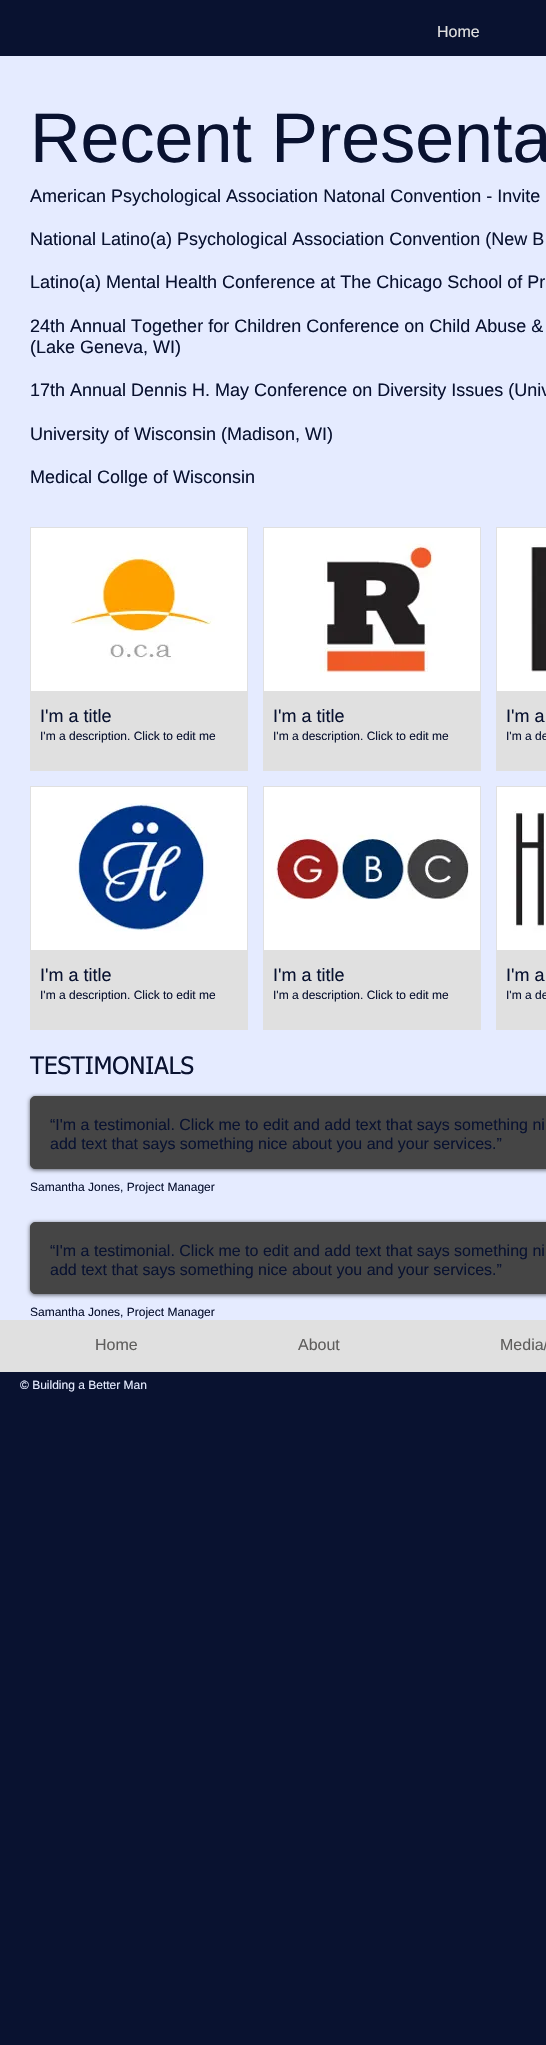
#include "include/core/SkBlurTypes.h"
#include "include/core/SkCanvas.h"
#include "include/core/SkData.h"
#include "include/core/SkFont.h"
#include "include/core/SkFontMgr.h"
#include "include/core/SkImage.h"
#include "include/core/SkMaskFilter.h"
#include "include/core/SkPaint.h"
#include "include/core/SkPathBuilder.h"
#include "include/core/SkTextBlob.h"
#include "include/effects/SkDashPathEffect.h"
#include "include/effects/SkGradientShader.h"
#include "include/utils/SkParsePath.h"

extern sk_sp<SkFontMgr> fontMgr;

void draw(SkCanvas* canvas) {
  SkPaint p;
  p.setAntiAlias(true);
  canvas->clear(SkColorSetRGB(9, 18, 48));
  p.setColor(SkColorSetRGB(229, 235, 255));
  canvas->drawRect(SkRect::MakeLTRB(0, 56, 546, 1320), p);
  p.setColor(SkColorSetRGB(224, 224, 224));
  canvas->drawRect(SkRect::MakeLTRB(30, 527, 248, 771), p);
  canvas->drawImageRect(SkImages::DeferredFromEncodedData(SkData::MakeFromFileName("images/1.png")), SkRect::MakeLTRB(31, 528, 247, 691), SkSamplingOptions());
  canvas->drawRect(SkRect::MakeLTRB(263, 527, 481, 771), p);
  canvas->drawImageRect(SkImages::DeferredFromEncodedData(SkData::MakeFromFileName("images/2.png")), SkRect::MakeLTRB(264, 528, 480, 691), SkSamplingOptions());
  canvas->drawRect(SkRect::MakeLTRB(496, 527, 546, 771), p);
  canvas->drawImageRect(SkImages::DeferredFromEncodedData(SkData::MakeFromFileName("images/3.png")), SkRect::MakeLTRB(497, 528, 546, 691), SkSamplingOptions());
  canvas->drawRect(SkRect::MakeLTRB(30, 786, 248, 1030), p);
  canvas->drawImageRect(SkImages::DeferredFromEncodedData(SkData::MakeFromFileName("images/4.png")), SkRect::MakeLTRB(31, 787, 247, 950), SkSamplingOptions());
  canvas->drawRect(SkRect::MakeLTRB(263, 786, 481, 1030), p);
  canvas->drawImageRect(SkImages::DeferredFromEncodedData(SkData::MakeFromFileName("images/5.png")), SkRect::MakeLTRB(264, 787, 480, 950), SkSamplingOptions());
  canvas->drawRect(SkRect::MakeLTRB(496, 786, 546, 1030), p);
  canvas->drawImageRect(SkImages::DeferredFromEncodedData(SkData::MakeFromFileName("images/6.png")), SkRect::MakeLTRB(497, 787, 546, 950), SkSamplingOptions());
  p.setColor(SkColorSetARGB(153, 0, 0, 0));
  p.setMaskFilter(SkMaskFilter::MakeBlur(kNormal_SkBlurStyle, 2));
  canvas->drawRoundRect(SkRect::MakeLTRB(30, 1097, 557, 1170), 5, 5, p);
  p.setMaskFilter(nullptr);
  p.setColor(SkColorSetRGB(69, 69, 69));
  canvas->drawRoundRect(SkRect::MakeLTRB(30.5f, 1096.5f, 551.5f, 1168.5f), 4.5f, 4.5f, p);
  p.setStyle(SkPaint::kStroke_Style);
  p.setStrokeWidth(1);
  canvas->drawRoundRect(SkRect::MakeLTRB(30.5f, 1096.5f, 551.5f, 1168.5f), 4.5f, 4.5f, p);
  p.setStyle(SkPaint::kFill_Style);
  p.setColor(SkColorSetARGB(153, 0, 0, 0));
  p.setMaskFilter(SkMaskFilter::MakeBlur(kNormal_SkBlurStyle, 2));
  canvas->drawRoundRect(SkRect::MakeLTRB(30, 1223, 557, 1295), 5, 5, p);
  p.setMaskFilter(nullptr);
  p.setColor(SkColorSetRGB(69, 69, 69));
  canvas->drawRoundRect(SkRect::MakeLTRB(30.5f, 1222.5f, 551.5f, 1293.5f), 4.5f, 4.5f, p);
  p.setStyle(SkPaint::kStroke_Style);
  canvas->drawRoundRect(SkRect::MakeLTRB(30.5f, 1222.5f, 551.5f, 1293.5f), 4.5f, 4.5f, p);
  p.setStyle(SkPaint::kFill_Style);
  p.setColor(SkColorSetRGB(224, 224, 224));
  canvas->drawRect(SkRect::MakeLTRB(0, 1320, 546, 1372), p);
  SkFont font1(fontMgr->matchFamilyStyle("Liberation Sans", SkFontStyle::Normal()), 16);
  font1.setSubpixel(true);
  canvas->drawString("Home", 437, 37, font1, p);
  SkFont font2(fontMgr->matchFamilyStyle("Liberation Sans", SkFontStyle::Normal()), 70);
  font2.setSubpixel(true);
  p.setColor(SkColorSetRGB(9, 18, 48));
  canvas->drawString("Recent Presenta", 30, 162, font2, p);
  SkFont font3(fontMgr->matchFamilyStyle("Liberation Sans", SkFontStyle::Normal()), 18);
  font3.setSubpixel(true);
  canvas->drawString("American Psychological Association Natonal Convention - Invite", 30, 202, font3, p);
  canvas->drawString("National Latino(a) Psychological Association Convention (New B", 30, 245, font3, p);
  canvas->drawString("Latino(a) Mental Health Conference at The Chicago School of Pr", 30, 288, font3, p);
  canvas->drawString("24th Annual Together for Children Conference on Child Abuse &", 30, 332, font3, p);
  canvas->drawString("(Lake Geneva, WI)", 30, 353, font3, p);
  canvas->drawString("17th Annual Dennis H. May Conference on Diversity Issues (Univ", 30, 396, font3, p);
  canvas->drawString("University of Wisconsin (Madison, WI)", 30, 440, font3, p);
  canvas->drawString("Medical Collge of Wisconsin", 30, 483, font3, p);
  canvas->drawString("I'm a title", 40, 722, font3, p);
  SkFont font4(fontMgr->matchFamilyStyle("Liberation Sans", SkFontStyle::Normal()), 12);
  font4.setSubpixel(true);
  canvas->drawString("I'm a description. Click to edit me", 40, 740, font4, p);
  canvas->drawString("I'm a title", 273, 722, font3, p);
  canvas->drawString("I'm a description. Click to edit me", 273, 740, font4, p);
  canvas->drawString("I'm a", 506, 722, font3, p);
  canvas->drawString("I'm a de", 506, 740, font4, p);
  canvas->drawString("I'm a title", 40, 981, font3, p);
  canvas->drawString("I'm a description. Click to edit me", 40, 999, font4, p);
  canvas->drawString("I'm a title", 273, 981, font3, p);
  canvas->drawString("I'm a description. Click to edit me", 273, 999, font4, p);
  canvas->drawString("I'm a", 506, 981, font3, p);
  canvas->drawString("I'm a de", 506, 999, font4, p);
  SkFont font5(fontMgr->matchFamilyStyle("tahoma", SkFontStyle::Normal()), 24);
  font5.setSubpixel(true);
  canvas->drawString("TESTIMONIALS", 30, 1074, font5, p);
  canvas->drawString("“I'm a testimonial. Click me to edit and add text that says something ni", 50, 1130, font1, p);
  canvas->drawString("add text that says something nice about you and your services.”", 50, 1149, font1, p);
  canvas->drawString("Samantha Jones, Project Manager", 30, 1191, font4, p);
  canvas->drawString("“I'm a testimonial. Click me to edit and add text that says something ni", 50, 1256, font1, p);
  canvas->drawString("add text that says something nice about you and your services.”", 50, 1275, font1, p);
  canvas->drawString("Samantha Jones, Project Manager", 30, 1316, font4, p);
  p.setColor(SkColorSetRGB(95, 94, 93));
  canvas->drawString("Home", 95, 1350, font1, p);
  canvas->drawString("About", 298, 1350, font1, p);
  canvas->drawString("Media/", 500, 1350, font1, p);
  p.setColor(SkColorSetRGB(229, 235, 255));
  canvas->drawString("© Building a Better Man", 20, 1389, font4, p);
}
